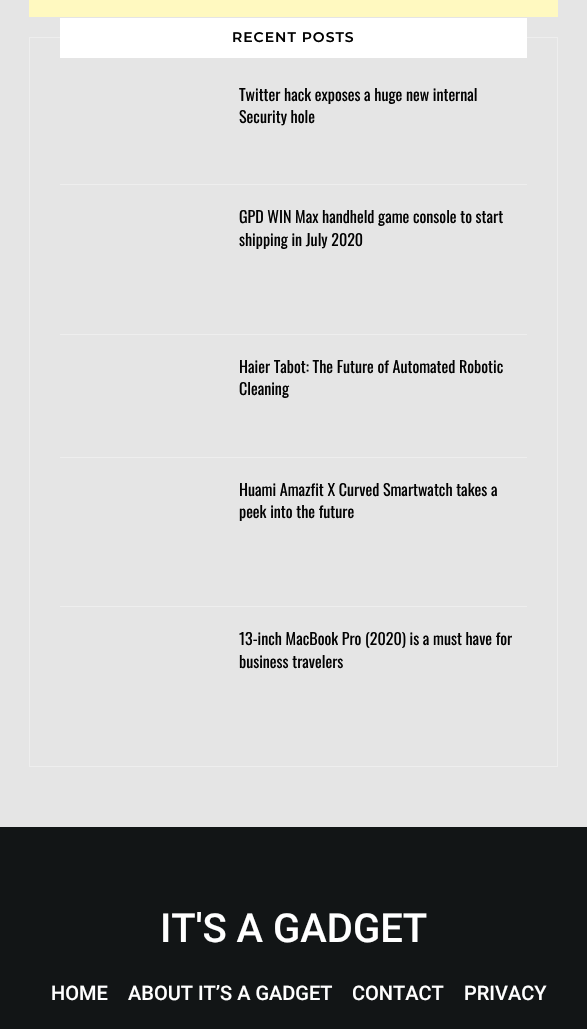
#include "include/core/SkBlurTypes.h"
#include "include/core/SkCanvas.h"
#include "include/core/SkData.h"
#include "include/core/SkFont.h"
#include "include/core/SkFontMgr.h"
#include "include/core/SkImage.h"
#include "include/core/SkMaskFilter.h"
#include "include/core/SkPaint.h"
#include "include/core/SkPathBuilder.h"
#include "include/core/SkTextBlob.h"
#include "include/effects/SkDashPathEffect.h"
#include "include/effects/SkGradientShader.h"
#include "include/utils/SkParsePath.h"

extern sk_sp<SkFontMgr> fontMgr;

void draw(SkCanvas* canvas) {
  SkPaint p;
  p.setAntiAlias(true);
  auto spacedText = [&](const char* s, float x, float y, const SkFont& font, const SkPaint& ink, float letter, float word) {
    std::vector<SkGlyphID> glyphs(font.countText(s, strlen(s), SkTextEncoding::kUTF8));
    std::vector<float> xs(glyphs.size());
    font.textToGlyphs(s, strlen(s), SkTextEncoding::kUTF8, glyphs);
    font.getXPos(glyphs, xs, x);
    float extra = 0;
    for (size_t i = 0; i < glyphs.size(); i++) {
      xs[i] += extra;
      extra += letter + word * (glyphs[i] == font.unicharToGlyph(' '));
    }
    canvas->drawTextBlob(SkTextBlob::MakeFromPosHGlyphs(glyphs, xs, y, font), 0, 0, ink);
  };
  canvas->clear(SkColorSetRGB(229, 229, 229));
  p.setColor(SkColorSetRGB(255, 249, 192));
  canvas->drawRect(SkRect::MakeLTRB(29, 0, 558, 17), p);
  p.setStyle(SkPaint::kStroke_Style);
  p.setStrokeWidth(1);
  p.setColor(SkColorSetRGB(238, 238, 238));
  canvas->drawRect(SkRect::MakeLTRB(29.5f, 37.5f, 557.5f, 766.5f), p);
  p.setStyle(SkPaint::kFill_Style);
  p.setColor(SK_ColorWHITE);
  canvas->drawRect(SkRect::MakeLTRB(60, 18, 527, 58), p);
  p.setColor(SkColorSetRGB(238, 238, 238));
  canvas->drawRect(SkRect::MakeLTRB(60, 184, 527, 185), p);
  canvas->drawRect(SkRect::MakeLTRB(60, 334, 527, 335), p);
  canvas->drawRect(SkRect::MakeLTRB(60, 457, 527, 458), p);
  canvas->drawRect(SkRect::MakeLTRB(60, 606, 527, 607), p);
  p.setColor(SkColorSetRGB(18, 21, 22));
  canvas->drawRect(SkRect::MakeLTRB(0, 827, 587, 1029), p);
  SkFont font1(fontMgr->matchFamilyStyle("Montserrat", SkFontStyle(600, SkFontStyle::kNormal_Width, SkFontStyle::kUpright_Slant)), 14);
  font1.setSubpixel(true);
  p.setColor(SkColorSetRGB(2, 2, 2));
  spacedText("RECENT POSTS", 232, 42, font1, p, 1, 0);
  SkFont font2(fontMgr->matchFamilyStyle("Oswald", SkFontStyle::Normal()), 16);
  font2.setSubpixel(true);
  canvas->drawString("Twitter hack exposes a huge new internal", 239, 101, font2, p);
  canvas->drawString("Security hole", 239, 123, font2, p);
  canvas->drawString("GPD WIN Max handheld game console to start", 239, 223, font2, p);
  canvas->drawString("shipping in July 2020", 239, 246, font2, p);
  canvas->drawString("Haier Tabot: The Future of Automated Robotic", 239, 373, font2, p);
  canvas->drawString("Cleaning", 239, 395, font2, p);
  canvas->drawString("Huami Amazfit X Curved Smartwatch takes a", 239, 496, font2, p);
  canvas->drawString("peek into the future", 239, 518, font2, p);
  canvas->drawString("13-inch MacBook Pro (2020) is a must have for", 239, 645, font2, p);
  canvas->drawString("business travelers", 239, 668, font2, p);
  SkFont font3(fontMgr->matchFamilyStyle("Roboto", SkFontStyle(500, SkFontStyle::kNormal_Width, SkFontStyle::kUpright_Slant)), 40);
  font3.setSubpixel(true);
  p.setColor(SK_ColorWHITE);
  canvas->drawString("IT'S A GADGET", 160, 942, font3, p);
  SkFont font4(fontMgr->matchFamilyStyle("Roboto", SkFontStyle(500, SkFontStyle::kNormal_Width, SkFontStyle::kUpright_Slant)), 20);
  font4.setSubpixel(true);
  canvas->drawString("HOME", 51, 1000, font4, p);
  canvas->drawString("ABOUT IT’S A GADGET", 128, 1000, font4, p);
  canvas->drawString("CONTACT", 352, 1000, font4, p);
  canvas->drawString("PRIVACY", 464, 1000, font4, p);
}
